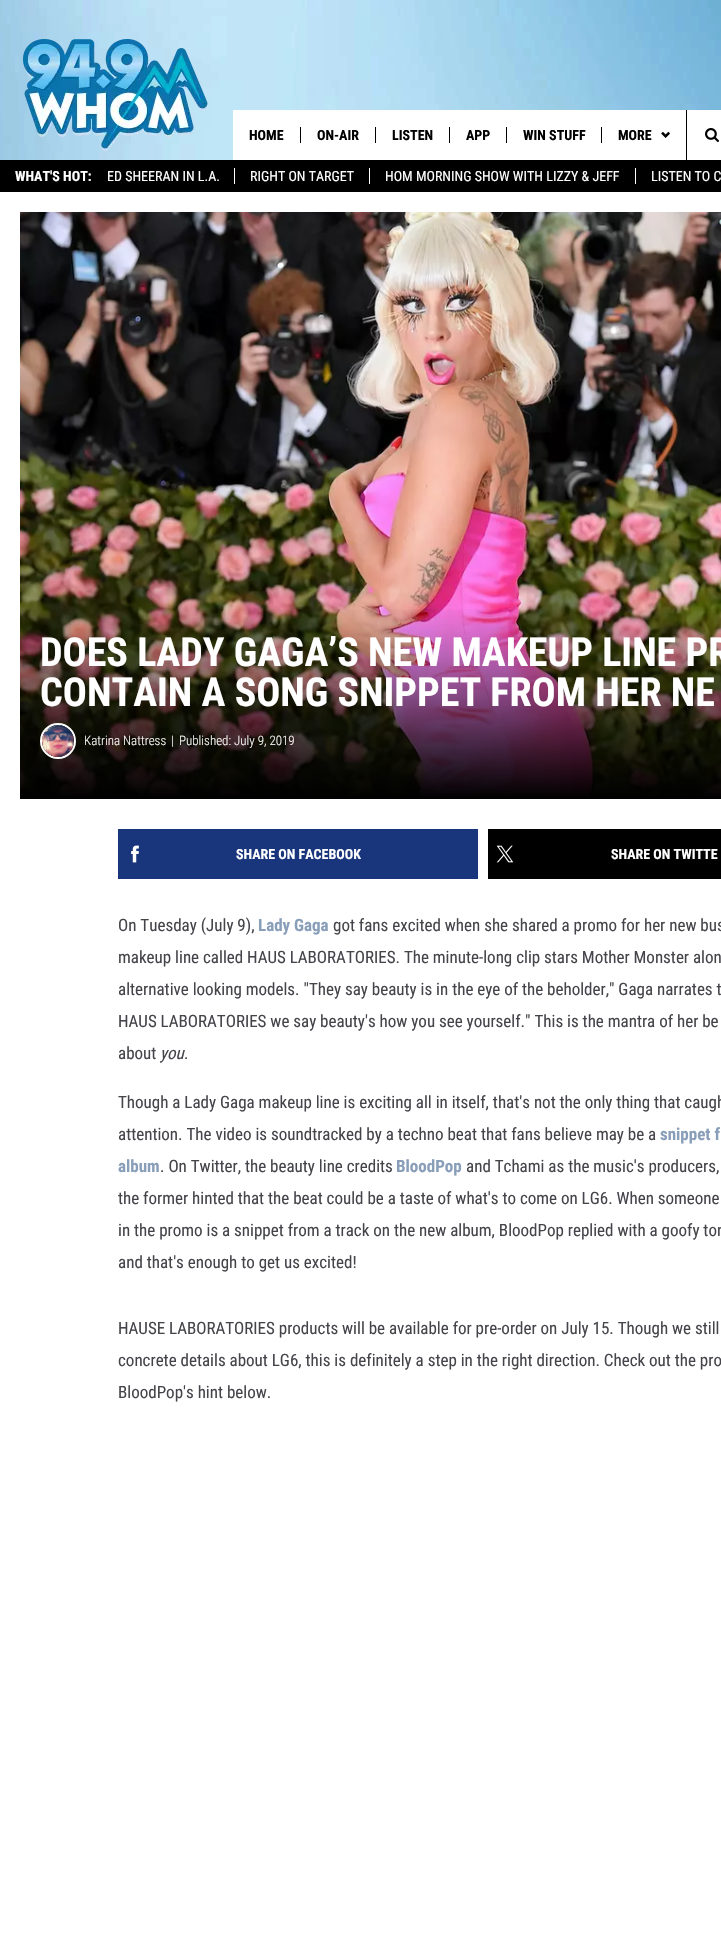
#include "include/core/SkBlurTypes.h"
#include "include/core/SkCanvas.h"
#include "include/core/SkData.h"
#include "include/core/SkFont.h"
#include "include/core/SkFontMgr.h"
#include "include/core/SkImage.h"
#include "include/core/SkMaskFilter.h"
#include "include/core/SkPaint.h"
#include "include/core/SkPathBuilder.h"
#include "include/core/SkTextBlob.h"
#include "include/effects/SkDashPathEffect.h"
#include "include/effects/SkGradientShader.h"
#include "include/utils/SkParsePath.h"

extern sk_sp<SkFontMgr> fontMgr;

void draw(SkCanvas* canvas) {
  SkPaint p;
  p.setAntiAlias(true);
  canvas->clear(SK_ColorWHITE);
  canvas->drawImageRect(SkImages::DeferredFromEncodedData(SkData::MakeFromFileName("images/1.png")), SkRect::MakeLTRB(0, 0, 721, 160), SkSamplingOptions());
  canvas->drawImageRect(SkImages::DeferredFromEncodedData(SkData::MakeFromFileName("images/2.png")), SkRect::MakeLTRB(23, 39, 208, 151), SkSamplingOptions());
  p.setColor(SK_ColorWHITE);
  canvas->drawRect(SkRect::MakeLTRB(233, 110, 686, 160), p);
  p.setColor(SK_ColorBLACK);
  canvas->drawRect(SkRect::MakeLTRB(300, 127, 301, 143), p);
  canvas->drawRect(SkRect::MakeLTRB(375, 127, 376, 143), p);
  canvas->drawRect(SkRect::MakeLTRB(449, 127, 450, 143), p);
  canvas->drawRect(SkRect::MakeLTRB(506, 127, 507, 143), p);
  canvas->drawRect(SkRect::MakeLTRB(601, 127, 602, 143), p);
  canvas->drawImageRect(SkImages::DeferredFromEncodedData(SkData::MakeFromFileName("images/3.png")), SkRect::MakeLTRB(661, 131, 670, 138), SkSamplingOptions());
  p.setColor(SK_ColorWHITE);
  canvas->drawRect(SkRect::MakeLTRB(687, 110, 721, 160), p);
  p.setColor(SK_ColorBLACK);
  canvas->drawRect(SkRect::MakeLTRB(686, 110, 687, 160), p);
  canvas->drawImageRect(SkImages::DeferredFromEncodedData(SkData::MakeFromFileName("images/4.png")), SkRect::MakeLTRB(705, 128, 719, 142), SkSamplingOptions());
  canvas->drawRect(SkRect::MakeLTRB(0, 160, 721, 192), p);
  p.setColor(SK_ColorWHITE);
  canvas->drawRect(SkRect::MakeLTRB(234, 168, 235, 184), p);
  canvas->drawRect(SkRect::MakeLTRB(369, 168, 370, 184), p);
  canvas->drawRect(SkRect::MakeLTRB(635, 168, 636, 184), p);
  canvas->drawImageRect(SkImages::DeferredFromEncodedData(SkData::MakeFromFileName("images/5.png")), SkRect::MakeLTRB(20, 212, 721, 798), SkSamplingOptions());
  {
    const SkColor colors[] = {SkColorSetARGB(0, 0, 0, 0), SK_ColorBLACK};
    const float stops[] = {0, 1};
    const SkPoint ends[] = {{483, 605}, {483, 799}};
    p.setShader(SkGradientShader::MakeLinear(ends, colors, stops, 2, SkTileMode::kClamp));
    p.setAlpha(255);
  }
  canvas->drawRect(SkRect::MakeLTRB(20, 609, 721, 799), p);
  p.setStyle(SkPaint::kStroke_Style);
  p.setStrokeWidth(2);
  p.setShader(nullptr);
  p.setColor(SK_ColorWHITE);
  canvas->drawCircle(58, 741, 17, p);
  canvas->drawImageRect(SkImages::DeferredFromEncodedData(SkData::MakeFromFileName("images/6.png")), SkRect::MakeLTRB(42, 725, 74, 757), SkSamplingOptions());
  p.setStyle(SkPaint::kFill_Style);
  p.setColor(SkColorSetRGB(25, 54, 124));
  canvas->drawRect(SkRect::MakeLTRB(118, 829, 478, 879), p);
  canvas->drawImageRect(SkImages::DeferredFromEncodedData(SkData::MakeFromFileName("images/7.png")), SkRect::MakeLTRB(131, 845, 139, 863), SkSamplingOptions());
  p.setColor(SK_ColorBLACK);
  canvas->drawRect(SkRect::MakeLTRB(488, 829, 721, 879), p);
  canvas->drawImageRect(SkImages::DeferredFromEncodedData(SkData::MakeFromFileName("images/8.png")), SkRect::MakeLTRB(496, 845, 514, 863), SkSamplingOptions());
  SkFont font1(fontMgr->matchFamilyStyle("Roboto Condensed", SkFontStyle::Bold()), 14);
  font1.setSubpixel(true);
  canvas->drawString("HOME", 249, 140, font1, p);
  canvas->drawString("ON-AIR", 317, 140, font1, p);
  canvas->drawString("LISTEN", 392, 140, font1, p);
  canvas->drawString("APP", 466, 140, font1, p);
  canvas->drawString("WIN STUFF", 523, 140, font1, p);
  canvas->drawString("MORE", 618, 140, font1, p);
  p.setColor(SK_ColorWHITE);
  canvas->drawString("WHAT'S HOT:", 15, 181, font1, p);
  SkFont font2(fontMgr->matchFamilyStyle("Roboto Condensed", SkFontStyle::Normal()), 14);
  font2.setSubpixel(true);
  canvas->drawString("ED SHEERAN IN L.A.", 107, 181, font2, p);
  canvas->drawString("RIGHT ON TARGET", 250, 181, font2, p);
  canvas->drawString("HOM MORNING SHOW WITH LIZZY & JEFF", 385, 181, font2, p);
  canvas->drawString("LISTEN TO C", 651, 181, font2, p);
  SkFont font3(fontMgr->matchFamilyStyle("Roboto Condensed", SkFontStyle::Bold()), 40);
  font3.setSubpixel(true);
  canvas->drawString("DOES LADY GAGA’S NEW MAKEUP LINE PR", 40, 666, font3, p);
  canvas->drawString("CONTAIN A SONG SNIPPET FROM HER NE", 40, 706, font3, p);
  SkFont font4(fontMgr->matchFamilyStyle("Roboto Condensed", SkFontStyle(300, SkFontStyle::kNormal_Width, SkFontStyle::kUpright_Slant)), 13);
  font4.setSubpixel(true);
  canvas->drawString("Katrina Nattress", 84, 745, font4, p);
  canvas->drawString("|", 171, 745, font4, p);
  canvas->drawString("Published: July 9, 2019", 179, 745, font4, p);
  canvas->drawString("SHARE ON FACEBOOK", 236, 859, font1, p);
  canvas->drawString("SHARE ON TWITTE", 611, 859, font1, p);
  SkFont font5(fontMgr->matchFamilyStyle("Roboto Condensed", SkFontStyle::Normal()), 17);
  font5.setSubpixel(true);
  p.setColor(SkColorSetRGB(69, 68, 74));
  canvas->drawString("On Tuesday (July 9),", 118, 931, font5, p);
  SkFont font6(fontMgr->matchFamilyStyle("Roboto Condensed", SkFontStyle::Bold()), 17);
  font6.setSubpixel(true);
  p.setColor(SkColorSetRGB(137, 158, 185));
  canvas->drawString("Lady Gaga", 258, 931, font6, p);
  p.setColor(SkColorSetRGB(69, 68, 74));
  canvas->drawString("got fans excited when she shared a promo for her new bus", 333, 931, font5, p);
  canvas->drawString("makeup line called HAUS LABORATORIES. The minute-long clip stars Mother Monster alon", 118, 963, font5, p);
  canvas->drawString("alternative looking models. \"They say beauty is in the eye of the beholder,\" Gaga narrates t", 118, 995, font5, p);
  canvas->drawString("HAUS LABORATORIES we say beauty's how you see yourself.\" This is the mantra of her be", 118, 1027, font5, p);
  canvas->drawString("about", 118, 1059, font5, p);
  SkFont font7(fontMgr->matchFamilyStyle("Roboto Condensed", SkFontStyle::Italic()), 17);
  font7.setSubpixel(true);
  canvas->drawString("you.", 160, 1059, font7, p);
  canvas->drawString("Though a Lady Gaga makeup line is exciting all in itself, that's not the only thing that caugh", 118, 1108, font5, p);
  canvas->drawString("attention. The video is soundtracked by a techno beat that fans believe may be a", 118, 1140, font5, p);
  p.setColor(SkColorSetRGB(137, 158, 185));
  canvas->drawString("snippet f", 660, 1140, font6, p);
  canvas->drawString("album", 118, 1172, font6, p);
  p.setColor(SkColorSetRGB(69, 68, 74));
  canvas->drawString(". On Twitter, the beauty line credits", 160, 1172, font5, p);
  p.setColor(SkColorSetRGB(137, 158, 185));
  canvas->drawString("BloodPop", 396, 1172, font6, p);
  p.setColor(SkColorSetRGB(69, 68, 74));
  canvas->drawString("and Tchami as the music's producers,", 466, 1172, font5, p);
  canvas->drawString("the former hinted that the beat could be a taste of what's to come on LG6. When someone", 118, 1204, font5, p);
  canvas->drawString("in the promo is a snippet from a track on the new album, BloodPop replied with a goofy ton", 118, 1236, font5, p);
  canvas->drawString("and that's enough to get us excited!", 118, 1268, font5, p);
  canvas->drawString("HAUSE LABORATORIES products will be available for pre-order on July 15. Though we still", 118, 1334, font5, p);
  canvas->drawString("concrete details about LG6, this is definitely a step in the right direction. Check out the pro", 118, 1366, font5, p);
  canvas->drawString("BloodPop's hint below.", 118, 1398, font5, p);
}
